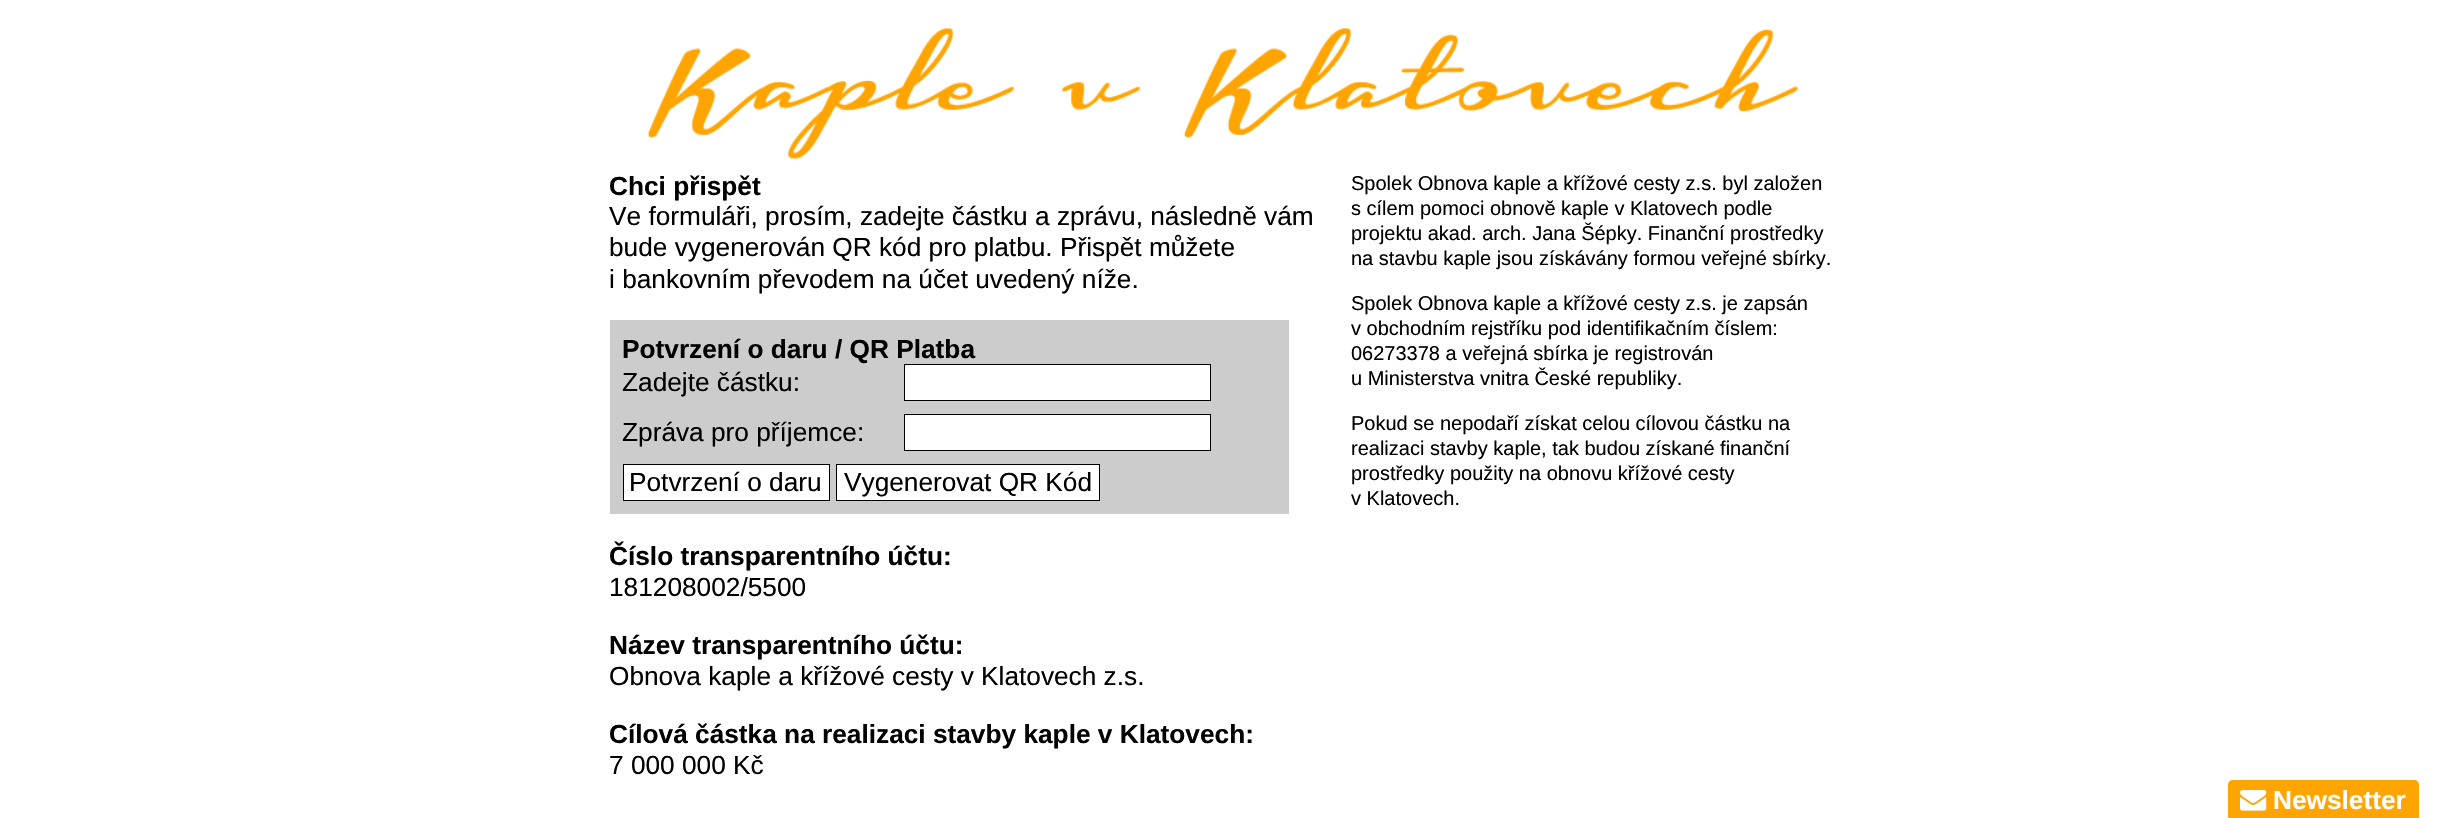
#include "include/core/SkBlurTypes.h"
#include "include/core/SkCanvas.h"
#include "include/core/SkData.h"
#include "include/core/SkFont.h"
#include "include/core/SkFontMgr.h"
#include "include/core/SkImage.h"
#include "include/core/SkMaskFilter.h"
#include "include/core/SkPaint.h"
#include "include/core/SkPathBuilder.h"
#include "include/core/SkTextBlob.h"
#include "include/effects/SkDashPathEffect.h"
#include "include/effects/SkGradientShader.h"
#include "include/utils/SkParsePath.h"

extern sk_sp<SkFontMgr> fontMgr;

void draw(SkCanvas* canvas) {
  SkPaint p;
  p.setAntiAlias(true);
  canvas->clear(SK_ColorWHITE);
  canvas->drawImageRect(SkImages::DeferredFromEncodedData(SkData::MakeFromFileName("images/1.png")), SkRect::MakeLTRB(647, 27, 1798, 159), SkSamplingOptions());
  p.setColor(SkColorSetRGB(204, 204, 204));
  canvas->drawRect(SkRect::MakeLTRB(610, 320, 1289, 514), p);
  p.setColor(SK_ColorWHITE);
  canvas->drawRect(SkRect::MakeLTRB(904.5f, 364.5f, 1210.5f, 400.5f), p);
  p.setStyle(SkPaint::kStroke_Style);
  p.setStrokeWidth(1);
  p.setColor(SK_ColorBLACK);
  canvas->drawRect(SkRect::MakeLTRB(904.5f, 364.5f, 1210.5f, 400.5f), p);
  p.setStyle(SkPaint::kFill_Style);
  p.setColor(SK_ColorWHITE);
  canvas->drawRect(SkRect::MakeLTRB(904.5f, 414.5f, 1210.5f, 450.5f), p);
  p.setStyle(SkPaint::kStroke_Style);
  p.setColor(SK_ColorBLACK);
  canvas->drawRect(SkRect::MakeLTRB(904.5f, 414.5f, 1210.5f, 450.5f), p);
  p.setStyle(SkPaint::kFill_Style);
  p.setColor(SK_ColorWHITE);
  canvas->drawRect(SkRect::MakeLTRB(623.5f, 464.5f, 829.5f, 500.5f), p);
  p.setStyle(SkPaint::kStroke_Style);
  p.setColor(SK_ColorBLACK);
  canvas->drawRect(SkRect::MakeLTRB(623.5f, 464.5f, 829.5f, 500.5f), p);
  p.setStyle(SkPaint::kFill_Style);
  p.setColor(SK_ColorWHITE);
  canvas->drawRect(SkRect::MakeLTRB(836.5f, 464.5f, 1099.5f, 500.5f), p);
  p.setStyle(SkPaint::kStroke_Style);
  p.setColor(SK_ColorBLACK);
  canvas->drawRect(SkRect::MakeLTRB(836.5f, 464.5f, 1099.5f, 500.5f), p);
  p.setStyle(SkPaint::kFill_Style);
  p.setColor(SkColorSetRGB(255, 164, 0));
  canvas->drawPath(SkPathBuilder().moveTo(2233, 780).lineTo(2414, 780).cubicTo(2417, 780, 2419, 782, 2419, 785).lineTo(2419, 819).lineTo(2228, 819).lineTo(2228, 785).cubicTo(2228, 782, 2230, 780, 2233, 780).close().detach(), p);
  canvas->drawImageRect(SkImages::DeferredFromEncodedData(SkData::MakeFromFileName("images/2.png")), SkRect::MakeLTRB(2240, 790, 2267, 811), SkSamplingOptions());
  SkFont font1(fontMgr->matchFamilyStyle("Liberation Sans", SkFontStyle::Bold()), 26.25f);
  font1.setSubpixel(true);
  p.setColor(SK_ColorBLACK);
  canvas->drawString("Chci přispět", 609, 195, font1, p);
  SkFont font2(fontMgr->matchFamilyStyle("Liberation Sans", SkFontStyle::Normal()), 26.25f);
  font2.setSubpixel(true);
  canvas->drawString("Ve formuláři, prosím, zadejte částku a zprávu, následně vám", 609, 225, font2, p);
  canvas->drawString("bude vygenerován QR kód pro platbu. Přispět můžete", 609, 256, font2, p);
  canvas->drawString("i bankovním převodem na účet uvedený níže.", 609, 288, font2, p);
  canvas->drawString("Potvrzení o daru / QR Platba", 622, 358, font1, p);
  canvas->drawString("Zadejte částku:", 622, 391, font2, p);
  canvas->drawString("Zpráva pro příjemce:", 622, 441, font2, p);
  canvas->drawString("Potvrzení o daru", 629, 491, font2, p);
  canvas->drawString("Vygenerovat QR Kód", 844, 491, font2, p);
  canvas->drawString("Číslo transparentního účtu:", 609, 565, font1, p);
  canvas->drawString("181208002/5500", 609, 596, font2, p);
  canvas->drawString("Název transparentního účtu:", 609, 654, font1, p);
  canvas->drawString("Obnova kaple a křížové cesty v Klatovech z.s.", 609, 685, font2, p);
  canvas->drawString("Cílová částka na realizaci stavby kaple v Klatovech:", 609, 743, font1, p);
  canvas->drawString("7 000 000 Kč", 609, 774, font2, p);
  SkFont font3(fontMgr->matchFamilyStyle("Liberation Sans", SkFontStyle::Normal()), 20);
  font3.setSubpixel(true);
  canvas->drawString("Spolek Obnova kaple a křížové cesty z.s. byl založen", 1351, 190, font3, p);
  canvas->drawString("s cílem pomoci obnově kaple v Klatovech podle", 1351, 215, font3, p);
  canvas->drawString("projektu akad. arch. Jana Šépky. Finanční prostředky", 1351, 240, font3, p);
  canvas->drawString("na stavbu kaple jsou získávány formou veřejné sbírky.", 1351, 265, font3, p);
  canvas->drawString("Spolek Obnova kaple a křížové cesty z.s. je zapsán", 1351, 310, font3, p);
  canvas->drawString("v obchodním rejstříku pod identifikačním číslem:", 1351, 335, font3, p);
  canvas->drawString("06273378 a veřejná sbírka je registrován", 1351, 360, font3, p);
  canvas->drawString("u Ministerstva vnitra České republiky.", 1351, 385, font3, p);
  canvas->drawString("Pokud se nepodaří získat celou cílovou částku na", 1351, 430, font3, p);
  canvas->drawString("realizaci stavby kaple, tak budou získané finanční", 1351, 455, font3, p);
  canvas->drawString("prostředky použity na obnovu křížové cesty", 1351, 480, font3, p);
  canvas->drawString("v Klatovech.", 1351, 505, font3, p);
  p.setColor(SK_ColorWHITE);
  canvas->drawString("Newsletter", 2273, 809, font1, p);
}
